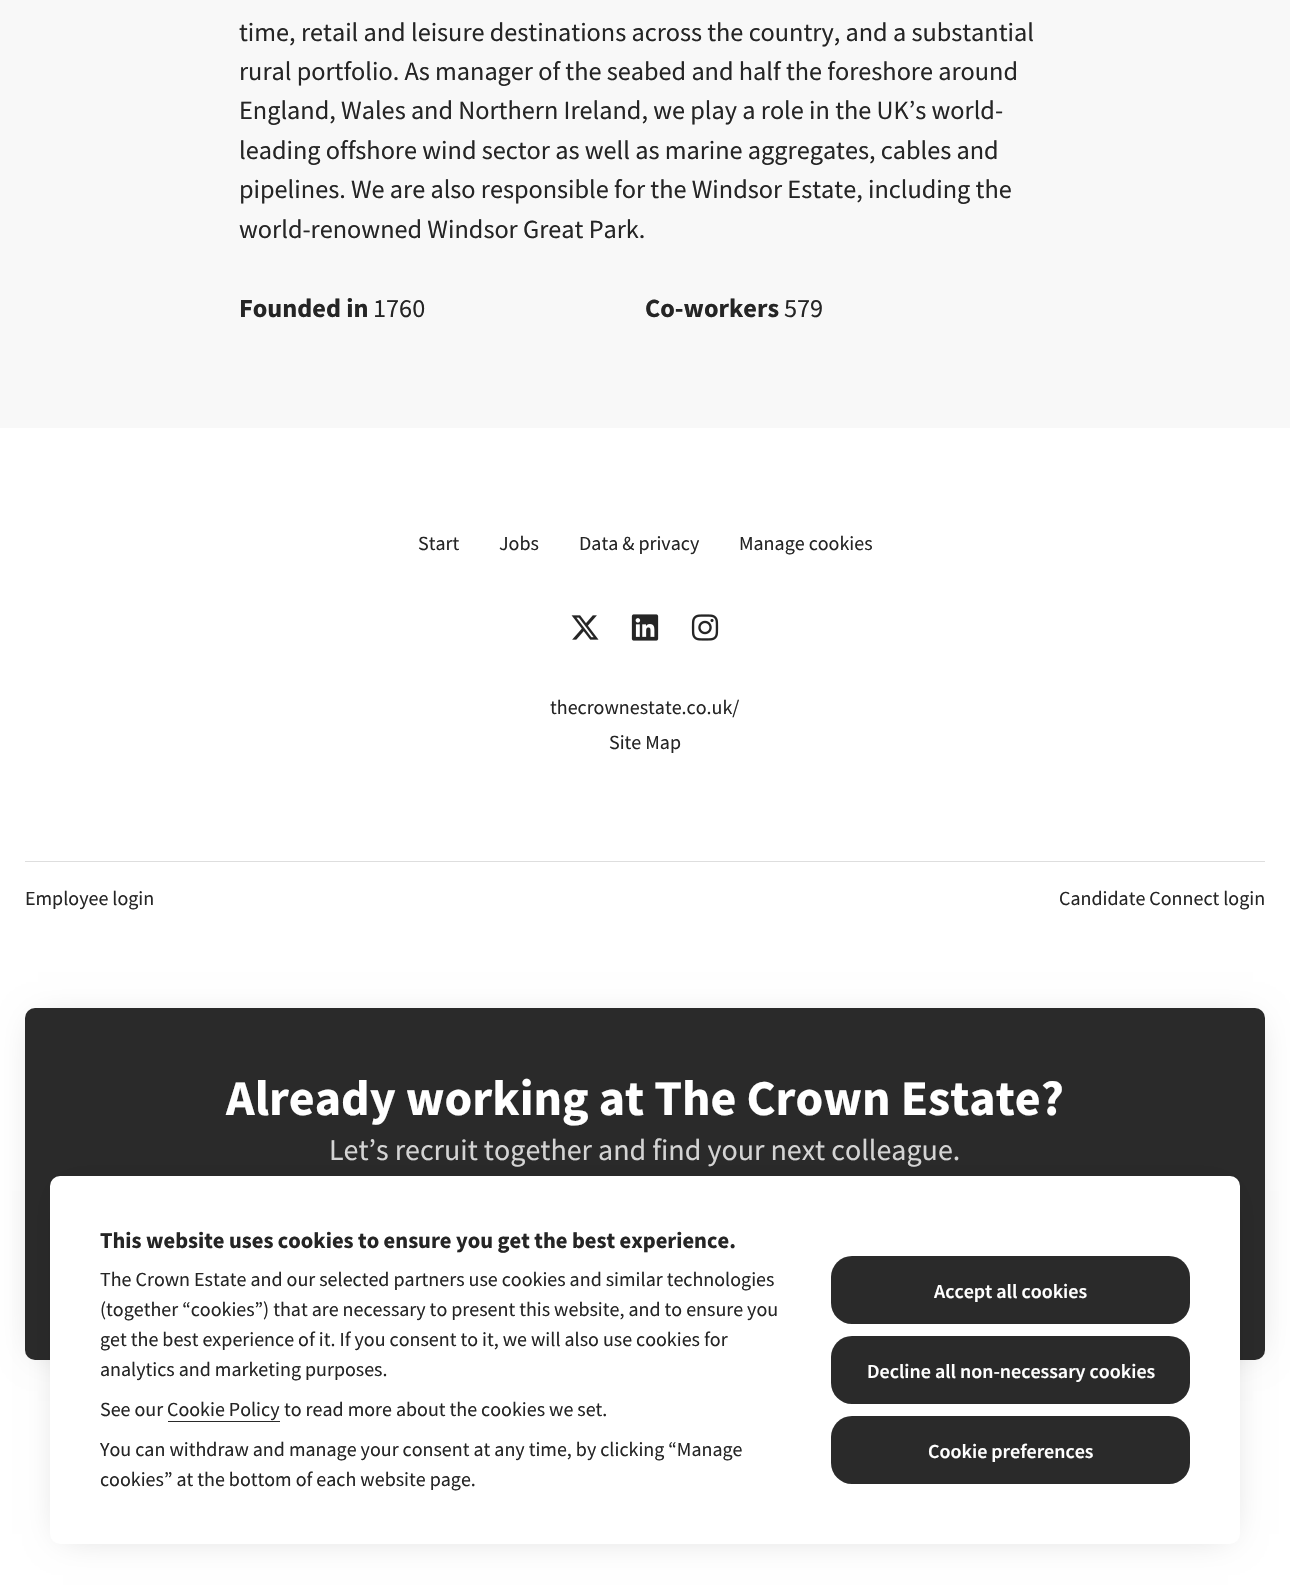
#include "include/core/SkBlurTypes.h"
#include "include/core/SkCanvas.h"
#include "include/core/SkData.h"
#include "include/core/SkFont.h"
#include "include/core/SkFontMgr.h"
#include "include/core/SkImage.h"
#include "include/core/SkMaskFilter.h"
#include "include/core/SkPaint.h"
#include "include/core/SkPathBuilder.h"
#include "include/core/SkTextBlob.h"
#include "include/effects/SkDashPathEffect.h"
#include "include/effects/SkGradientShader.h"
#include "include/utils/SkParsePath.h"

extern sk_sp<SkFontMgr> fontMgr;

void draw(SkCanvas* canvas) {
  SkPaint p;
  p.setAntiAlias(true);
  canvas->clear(SK_ColorWHITE);
  p.setColor(SkColorSetRGB(248, 248, 248));
  canvas->drawRect(SkRect::MakeLTRB(0, 0, 1290, 428), p);
  canvas->drawImageRect(SkImages::DeferredFromEncodedData(SkData::MakeFromFileName("images/1.png")), SkRect::MakeLTRB(571, 615, 599, 640), SkSamplingOptions());
  canvas->drawImageRect(SkImages::DeferredFromEncodedData(SkData::MakeFromFileName("images/2.png")), SkRect::MakeLTRB(631, 614, 659, 641), SkSamplingOptions());
  canvas->drawImageRect(SkImages::DeferredFromEncodedData(SkData::MakeFromFileName("images/3.png")), SkRect::MakeLTRB(691, 614, 719, 641), SkSamplingOptions());
  p.setColor(SkColorSetRGB(222, 222, 222));
  canvas->drawRect(SkRect::MakeLTRB(25, 861, 1265, 862), p);
  p.setColor(SkColorSetARGB(46, 0, 0, 0));
  p.setMaskFilter(SkMaskFilter::MakeBlur(kNormal_SkBlurStyle, 17));
  canvas->drawRect(SkRect::MakeLTRB(38, 1023, 1253, 1350), p);
  p.setMaskFilter(nullptr);
  p.setColor(SkColorSetRGB(42, 42, 42));
  canvas->drawRoundRect(SkRect::MakeLTRB(25, 1008, 1265, 1360), 10, 10, p);
  p.setColor(SkColorSetARGB(46, 0, 0, 0));
  p.setMaskFilter(SkMaskFilter::MakeBlur(kNormal_SkBlurStyle, 17));
  canvas->drawRect(SkRect::MakeLTRB(63, 1191, 1228, 1534), p);
  p.setMaskFilter(nullptr);
  p.setColor(SK_ColorWHITE);
  canvas->drawRoundRect(SkRect::MakeLTRB(50, 1176, 1240, 1544), 10, 10, p);
  p.setColor(SkColorSetRGB(42, 42, 42));
  canvas->drawRect(SkRect::MakeLTRB(168, 1421, 280, 1422), p);
  canvas->drawRoundRect(SkRect::MakeLTRB(831, 1256, 1190, 1324), 21, 21, p);
  canvas->drawRoundRect(SkRect::MakeLTRB(831, 1336, 1190, 1404), 21, 21, p);
  canvas->drawRoundRect(SkRect::MakeLTRB(831, 1416, 1190, 1484), 21, 21, p);
  SkFont font1(fontMgr->matchFamilyStyle("Source Sans Pro", SkFontStyle::Normal()), 26.25f);
  font1.setSubpixel(true);
  p.setColor(SkColorSetRGB(37, 37, 37));
  canvas->drawString("time, retail and leisure destinations across the country, and a substantial", 239, 41, font1, p);
  canvas->drawString("rural portfolio. As manager of the seabed and half the foreshore around", 239, 80, font1, p);
  canvas->drawString("England, Wales and Northern Ireland, we play a role in the UK’s world-", 239, 119, font1, p);
  canvas->drawString("leading offshore wind sector as well as marine aggregates, cables and", 239, 159, font1, p);
  canvas->drawString("pipelines. We are also responsible for the Windsor Estate, including the", 239, 198, font1, p);
  canvas->drawString("world-renowned Windsor Great Park.", 239, 238, font1, p);
  SkFont font2(fontMgr->matchFamilyStyle("Source Sans Pro", SkFontStyle::Bold()), 26.25f);
  font2.setSubpixel(true);
  canvas->drawString("Founded in", 239, 317, font2, p);
  canvas->drawString("1760", 373, 317, font1, p);
  canvas->drawString("Co-workers", 645, 317, font2, p);
  canvas->drawString("579", 784, 317, font1, p);
  SkFont font3(fontMgr->matchFamilyStyle("Source Sans Pro", SkFontStyle::Normal()), 20);
  font3.setSubpixel(true);
  canvas->drawString("Start", 418, 550, font3, p);
  canvas->drawString("Jobs", 499, 550, font3, p);
  canvas->drawString("Data & privacy", 579, 550, font3, p);
  canvas->drawString("Manage cookies", 739, 550, font3, p);
  canvas->drawString("thecrownestate.co.uk/", 550, 714, font3, p);
  canvas->drawString("Site Map", 609, 749, font3, p);
  canvas->drawString("Employee login", 25, 905, font3, p);
  canvas->drawString("Candidate Connect login", 1059, 905, font3, p);
  SkFont font4(fontMgr->matchFamilyStyle("Source Sans Pro", SkFontStyle::Bold()), 50);
  font4.setSubpixel(true);
  p.setColor(SK_ColorWHITE);
  canvas->drawString("Already working at The Crown Estate?", 226, 1115, font4, p);
  SkFont font5(fontMgr->matchFamilyStyle("Source Sans Pro", SkFontStyle::Normal()), 30);
  font5.setSubpixel(true);
  p.setColor(SkColorSetRGB(212, 212, 212));
  canvas->drawString("Let’s recruit together and find your next colleague.", 329, 1160, font5, p);
  SkFont font6(fontMgr->matchFamilyStyle("Source Sans Pro", SkFontStyle::Bold()), 22.5f);
  font6.setSubpixel(true);
  p.setColor(SkColorSetRGB(37, 37, 37));
  canvas->drawString("This website uses cookies to ensure you get the best experience.", 100, 1248, font6, p);
  canvas->drawString("The Crown Estate and our selected partners use cookies and similar technologies", 100, 1286, font3, p);
  canvas->drawString("(together “cookies”) that are necessary to present this website, and to ensure you", 100, 1316, font3, p);
  canvas->drawString("get the best experience of it. If you consent to it, we will also use cookies for", 100, 1346, font3, p);
  canvas->drawString("analytics and marketing purposes.", 100, 1376, font3, p);
  canvas->drawString("See our", 100, 1416, font3, p);
  canvas->drawString("Cookie Policy", 167, 1416, font3, p);
  canvas->drawString("to read more about the cookies we set.", 284, 1416, font3, p);
  canvas->drawString("You can withdraw and manage your consent at any time, by clicking “Manage", 100, 1456, font3, p);
  canvas->drawString("cookies” at the bottom of each website page.", 100, 1486, font3, p);
  SkFont font7(fontMgr->matchFamilyStyle("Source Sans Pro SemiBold", SkFontStyle(600, SkFontStyle::kNormal_Width, SkFontStyle::kUpright_Slant)), 20);
  font7.setSubpixel(true);
  p.setColor(SK_ColorWHITE);
  canvas->drawString("Accept all cookies", 934, 1298, font7, p);
  canvas->drawString("Decline all non-necessary cookies", 867, 1378, font7, p);
  canvas->drawString("Cookie preferences", 928, 1458, font7, p);
}
